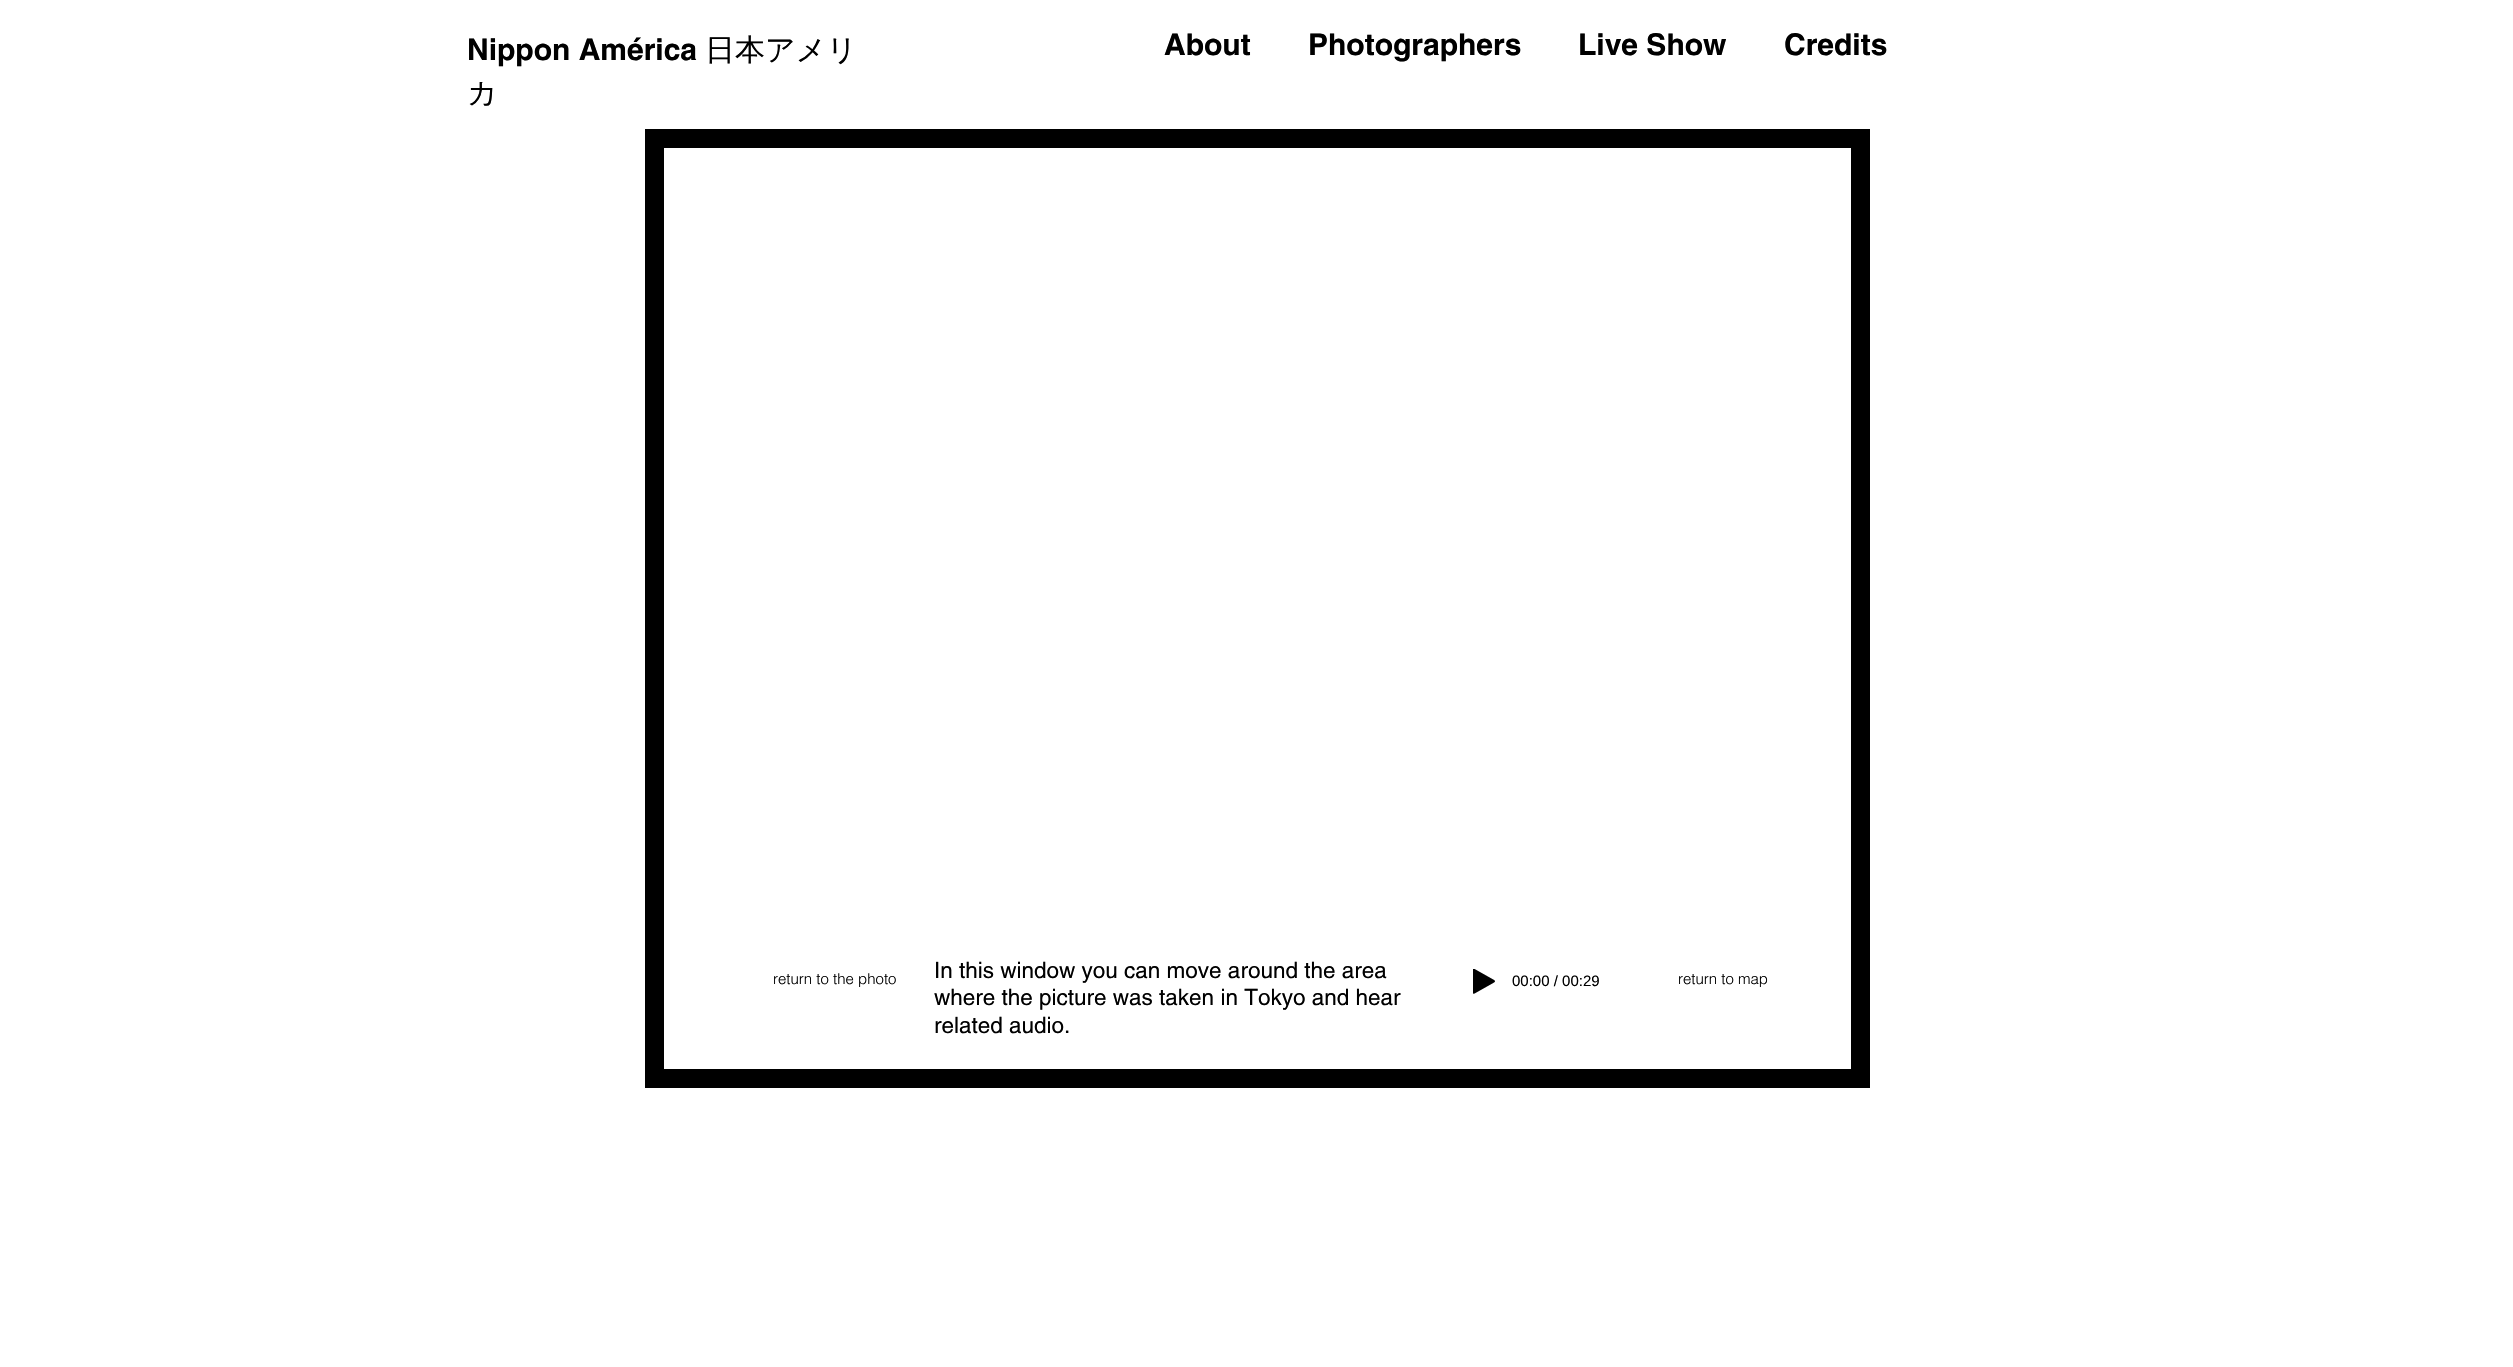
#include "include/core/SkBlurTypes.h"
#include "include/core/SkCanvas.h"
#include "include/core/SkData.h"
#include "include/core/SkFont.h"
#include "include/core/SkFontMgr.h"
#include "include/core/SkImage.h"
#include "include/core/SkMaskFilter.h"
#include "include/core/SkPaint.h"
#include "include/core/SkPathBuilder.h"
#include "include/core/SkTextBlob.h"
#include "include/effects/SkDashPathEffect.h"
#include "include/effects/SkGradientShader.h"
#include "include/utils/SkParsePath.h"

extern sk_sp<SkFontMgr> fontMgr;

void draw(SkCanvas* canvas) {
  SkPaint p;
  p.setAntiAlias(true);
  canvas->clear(SK_ColorWHITE);
  p.setStyle(SkPaint::kStroke_Style);
  p.setStrokeWidth(19);
  p.setColor(SK_ColorBLACK);
  canvas->drawRect(SkRect::MakeLTRB(654.5f, 138.5f, 1860.5f, 1078.5f), p);
  canvas->drawImageRect(SkImages::DeferredFromEncodedData(SkData::MakeFromFileName("images/1.png")), SkRect::MakeLTRB(1473, 969, 1495, 994), SkSamplingOptions());
  SkFont font1(fontMgr->matchFamilyStyle("helvetica", SkFontStyle::Bold()), 30);
  font1.setSubpixel(true);
  p.setStyle(SkPaint::kFill_Style);
  canvas->drawString("Nippon América", 467, 60, font1, p);
  SkFont font2(fontMgr->matchFamilyStyle("WenQuanYi Zen Hei", SkFontStyle(500, SkFontStyle::kNormal_Width, SkFontStyle::kUpright_Slant)), 30);
  font2.setSubpixel(true);
  canvas->drawString("日本アメリ", 705, 60, font2, p);
  canvas->drawString("カ", 467, 103, font2, p);
  canvas->drawString("About", 1164, 55, font1, p);
  canvas->drawString("Photographers", 1308, 55, font1, p);
  canvas->drawString("Live Show", 1578, 55, font1, p);
  canvas->drawString("Credits", 1784, 55, font1, p);
  SkFont font3(fontMgr->matchFamilyStyle("helvetica", SkFontStyle(300, SkFontStyle::kNormal_Width, SkFontStyle::kUpright_Slant)), 15);
  font3.setSubpixel(true);
  canvas->drawString("return to the photo", 773, 984, font3, p);
  SkFont font4(fontMgr->matchFamilyStyle("helvetica", SkFontStyle::Normal()), 22.5f);
  font4.setSubpixel(true);
  canvas->drawString("In this window you can move around the area", 934, 978, font4, p);
  canvas->drawString("where the picture was taken in Tokyo and hear", 934, 1005, font4, p);
  canvas->drawString("related audio.", 934, 1033, font4, p);
  SkFont font5(fontMgr->matchFamilyStyle("Liberation Sans", SkFontStyle::Normal()), 15);
  font5.setSubpixel(true);
  canvas->drawString("00:00 / 00:29", 1512, 986, font5, p);
  canvas->drawString("return to map", 1678, 984, font3, p);
}
